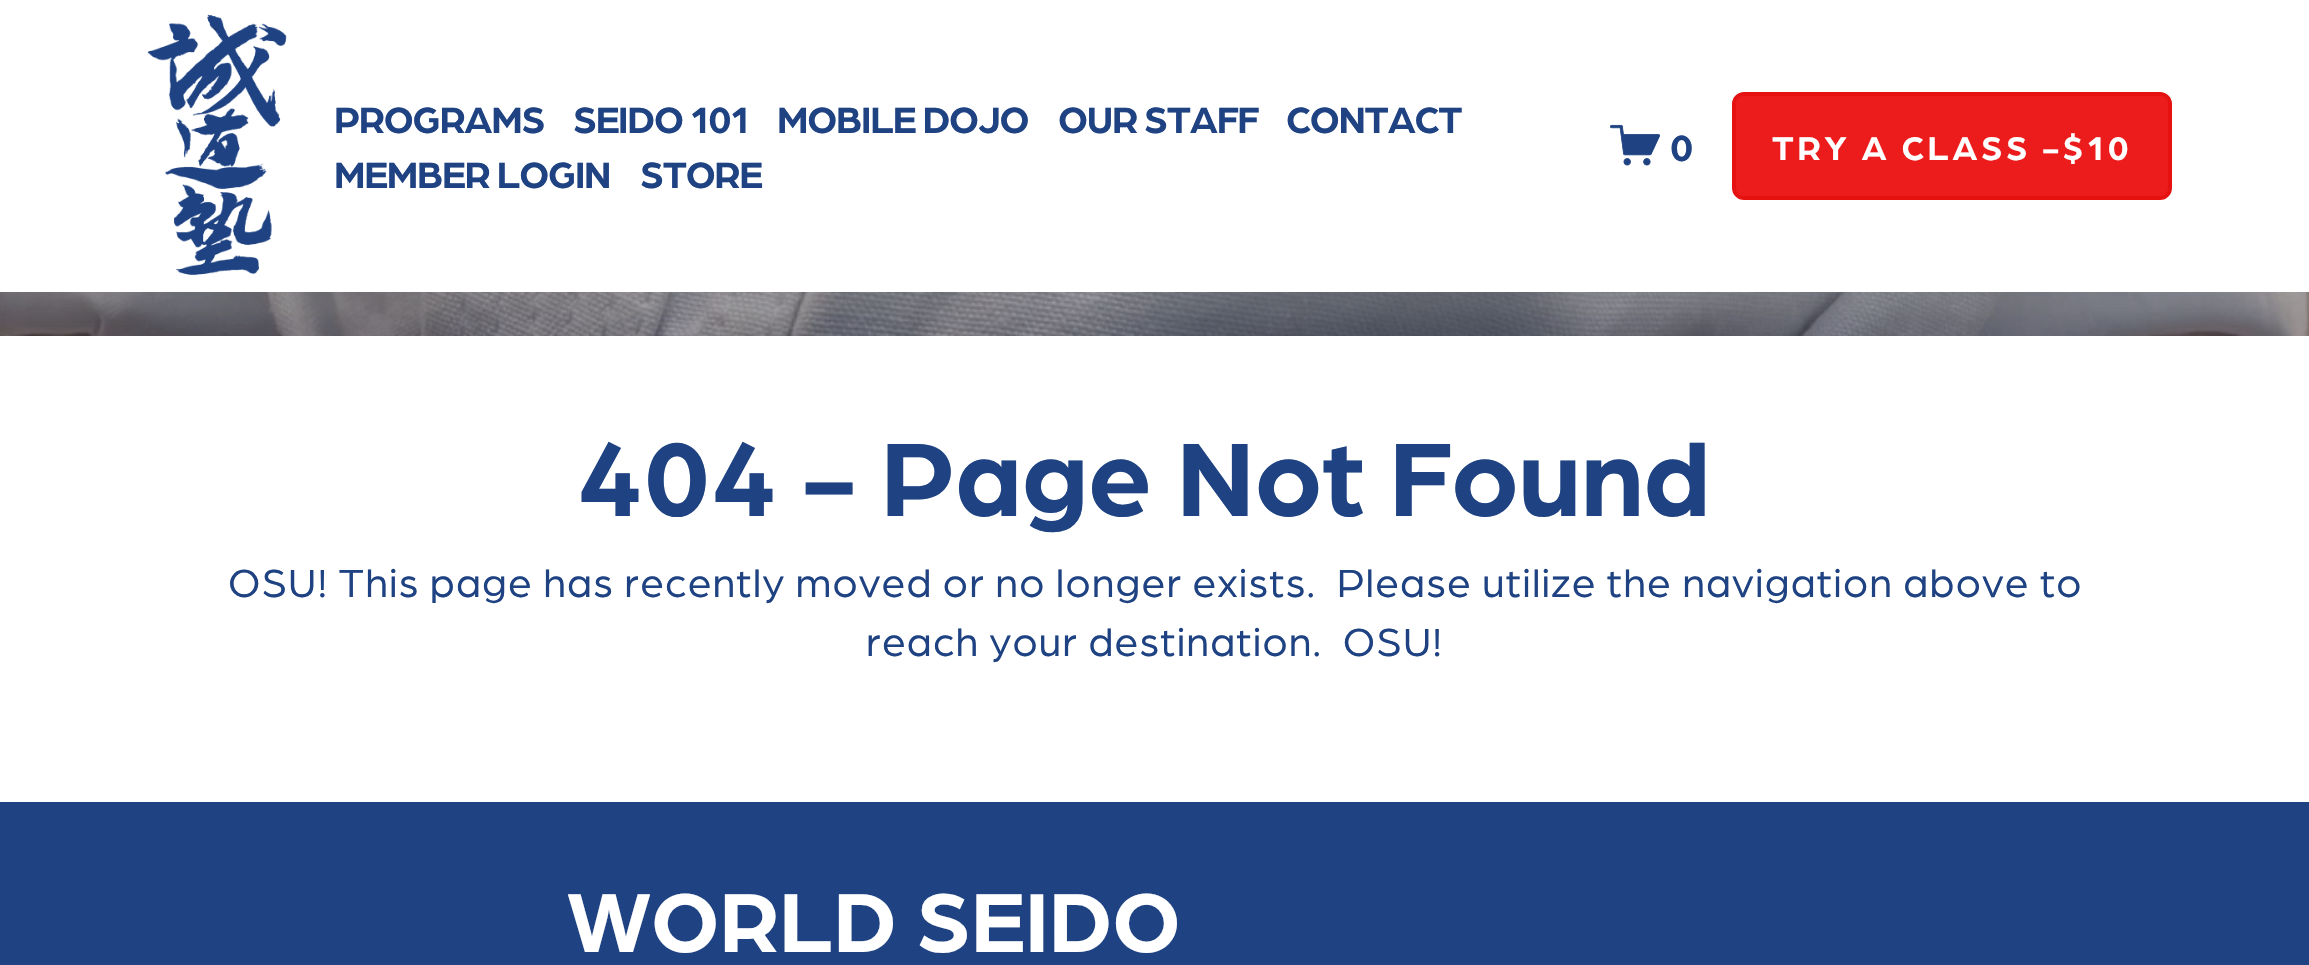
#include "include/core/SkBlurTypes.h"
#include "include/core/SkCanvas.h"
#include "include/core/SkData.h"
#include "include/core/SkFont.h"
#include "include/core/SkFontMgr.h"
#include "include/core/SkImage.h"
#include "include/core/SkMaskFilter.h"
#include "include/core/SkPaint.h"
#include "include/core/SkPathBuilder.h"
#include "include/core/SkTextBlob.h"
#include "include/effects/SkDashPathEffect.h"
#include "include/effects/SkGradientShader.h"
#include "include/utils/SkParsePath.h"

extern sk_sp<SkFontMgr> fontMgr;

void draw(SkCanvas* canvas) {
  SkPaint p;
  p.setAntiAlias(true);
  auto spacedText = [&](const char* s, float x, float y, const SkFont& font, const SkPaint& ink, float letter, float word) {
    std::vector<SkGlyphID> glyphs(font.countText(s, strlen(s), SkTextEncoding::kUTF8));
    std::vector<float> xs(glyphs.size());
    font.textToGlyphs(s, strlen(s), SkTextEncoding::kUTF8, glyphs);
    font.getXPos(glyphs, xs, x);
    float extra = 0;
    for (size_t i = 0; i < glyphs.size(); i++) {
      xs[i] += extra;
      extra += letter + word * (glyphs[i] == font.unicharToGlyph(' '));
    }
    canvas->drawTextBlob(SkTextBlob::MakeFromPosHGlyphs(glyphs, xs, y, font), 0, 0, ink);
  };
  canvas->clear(SkColorSetRGB(30, 66, 130));
  canvas->drawImageRect(SkImages::DeferredFromEncodedData(SkData::MakeFromFileName("images/3.png")), SkRect::MakeLTRB(0, 292, 2309, 336), SkSamplingOptions());
  p.setColor(SK_ColorWHITE);
  canvas->drawRect(SkRect::MakeLTRB(0, 336, 2309, 802), p);
  p.setColor(SkColorSetARGB(38, 200, 198, 192));
  p.setMaskFilter(SkMaskFilter::MakeBlur(kNormal_SkBlurStyle, 12));
  canvas->drawRect(SkRect::MakeLTRB(0, 24, 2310, 316), p);
  p.setMaskFilter(nullptr);
  p.setColor(SK_ColorWHITE);
  canvas->drawRect(SkRect::MakeLTRB(0, 0, 2309, 292), p);
  canvas->drawImageRect(SkImages::DeferredFromEncodedData(SkData::MakeFromFileName("images/1.png")), SkRect::MakeLTRB(147, 14, 287, 275), SkSamplingOptions());
  canvas->drawImageRect(SkImages::DeferredFromEncodedData(SkData::MakeFromFileName("images/2.png")), SkRect::MakeLTRB(1610, 124, 1660, 166), SkSamplingOptions());
  p.setColor(SkColorSetRGB(237, 28, 28));
  canvas->drawRoundRect(SkRect::MakeLTRB(1734, 94, 2170, 198), 10, 10, p);
  p.setStyle(SkPaint::kStroke_Style);
  p.setStrokeWidth(4);
  p.setColor(SkColorSetRGB(230, 17, 17));
  canvas->drawRoundRect(SkRect::MakeLTRB(1734, 94, 2170, 198), 10, 10, p);
  SkFont font1(fontMgr->matchFamilyStyle("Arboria", SkFontStyle::Bold()), 39);
  font1.setSubpixel(true);
  p.setStyle(SkPaint::kFill_Style);
  p.setColor(SkColorSetRGB(30, 66, 130));
  spacedText("PROGRAMS", 334, 133, font1, p, -1.25f, 0);
  spacedText("SEIDO 101", 573, 133, font1, p, -1.25f, 0);
  spacedText("MOBILE DOJO", 777, 133, font1, p, -1.25f, 0);
  spacedText("OUR STAFF", 1058, 133, font1, p, -1.25f, 0);
  spacedText("CONTACT", 1286, 133, font1, p, -1.25f, 0);
  spacedText("MEMBER LOGIN", 334, 188, font1, p, -1.25f, 0);
  spacedText("STORE", 640, 188, font1, p, -1.25f, 0);
  spacedText("0", 1670, 161, font1, p, -1.25f, 0);
  SkFont font2(fontMgr->matchFamilyStyle("Arboria", SkFontStyle::Bold()), 35);
  font2.setSubpixel(true);
  p.setColor(SK_ColorWHITE);
  spacedText("TRY A CLASS -$10", 1772, 160, font2, p, 3.5f, 0);
  SkFont font3(fontMgr->matchFamilyStyle("Arboria", SkFontStyle::Bold()), 111.25f);
  font3.setSubpixel(true);
  p.setColor(SkColorSetRGB(30, 66, 130));
  canvas->drawString("404 - Page Not Found", 576, 516, font3, p);
  SkFont font4(fontMgr->matchFamilyStyle("Arboria", SkFontStyle::Normal()), 41.85f);
  font4.setSubpixel(true);
  spacedText("OSU! This page has recently moved or no longer exists.  Please utilize the navigation above to", 228, 597, font4, p, 1.17f, 0);
  spacedText("reach your destination.  OSU!", 866, 656, font4, p, 1.17f, 0);
  SkFont font5(fontMgr->matchFamilyStyle("Arboria", SkFontStyle::Bold()), 89);
  font5.setSubpixel(true);
  p.setColor(SK_ColorWHITE);
  canvas->drawString("WORLD SEIDO", 567, 952, font5, p);
}
